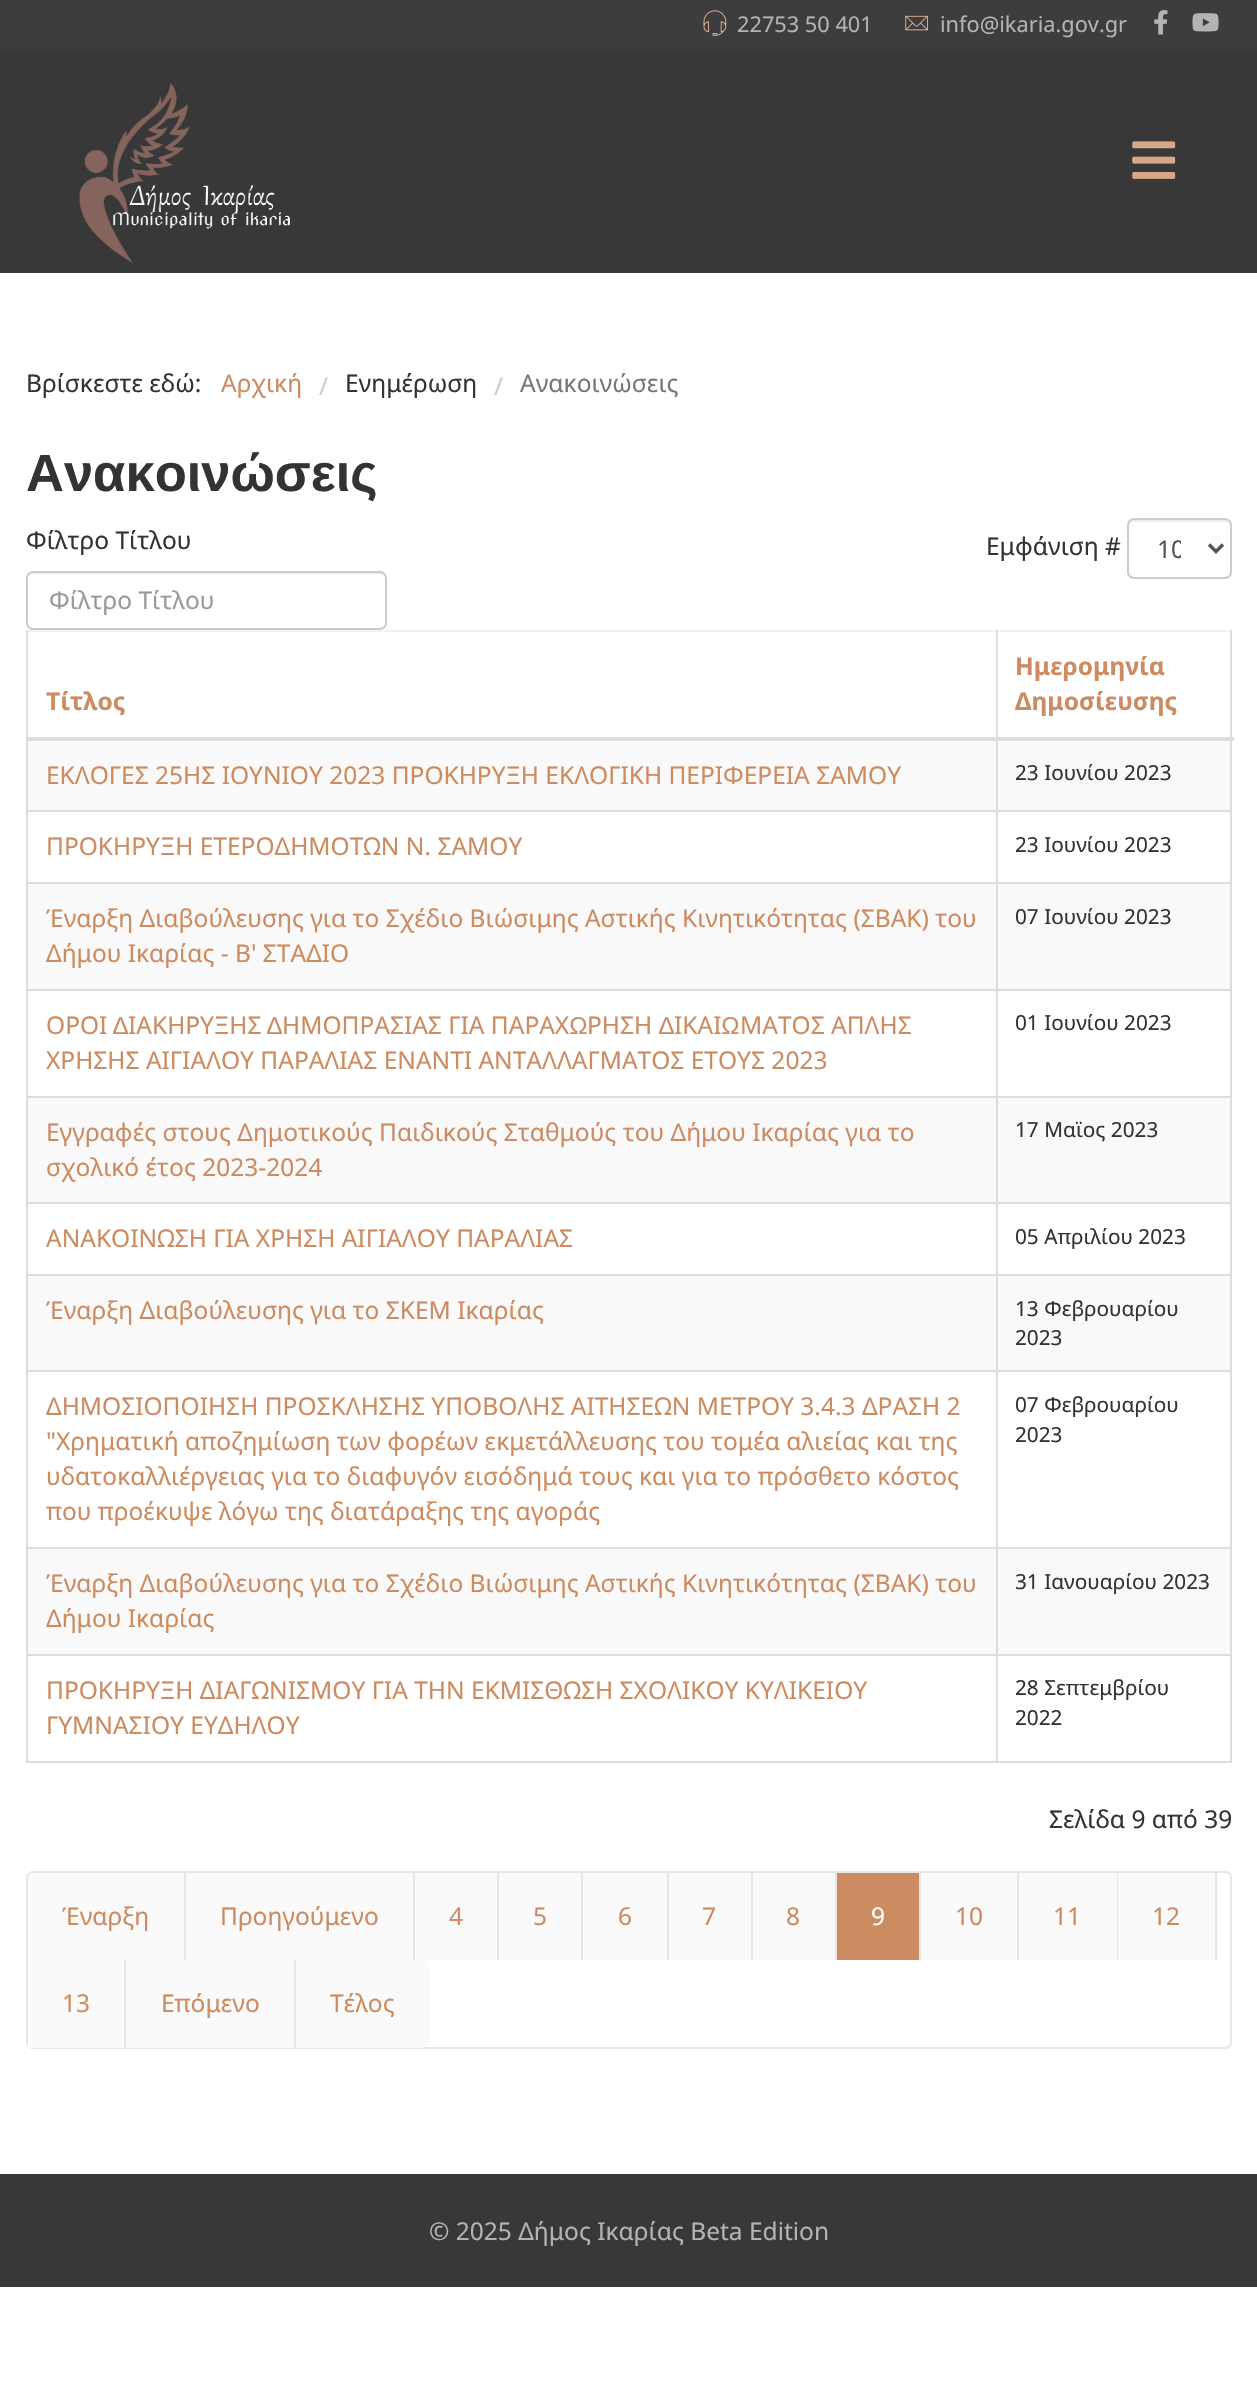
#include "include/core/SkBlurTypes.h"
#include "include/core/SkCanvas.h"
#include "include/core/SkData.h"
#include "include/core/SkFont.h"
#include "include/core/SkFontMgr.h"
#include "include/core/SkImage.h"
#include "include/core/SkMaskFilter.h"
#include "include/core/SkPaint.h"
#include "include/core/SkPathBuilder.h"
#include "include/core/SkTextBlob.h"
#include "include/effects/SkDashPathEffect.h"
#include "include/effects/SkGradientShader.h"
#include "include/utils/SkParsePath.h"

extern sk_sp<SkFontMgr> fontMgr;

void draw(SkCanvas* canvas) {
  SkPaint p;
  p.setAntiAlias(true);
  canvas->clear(SK_ColorWHITE);
  p.setColor(SkColorSetRGB(61, 61, 61));
  canvas->drawRect(SkRect::MakeLTRB(0, 0, 1257, 51), p);
  canvas->drawImageRect(SkImages::DeferredFromEncodedData(SkData::MakeFromFileName("images/1.png")), SkRect::MakeLTRB(703, 10, 727, 36), SkSamplingOptions());
  canvas->drawImageRect(SkImages::DeferredFromEncodedData(SkData::MakeFromFileName("images/2.png")), SkRect::MakeLTRB(905, 15, 928, 31), SkSamplingOptions());
  canvas->drawImageRect(SkImages::DeferredFromEncodedData(SkData::MakeFromFileName("images/3.png")), SkRect::MakeLTRB(1154, 10, 1168, 35), SkSamplingOptions());
  canvas->drawImageRect(SkImages::DeferredFromEncodedData(SkData::MakeFromFileName("images/4.png")), SkRect::MakeLTRB(1192, 13, 1219, 32), SkSamplingOptions());
  p.setColor(SkColorSetRGB(56, 56, 56));
  canvas->drawRect(SkRect::MakeLTRB(0, 51, 1257, 273), p);
  canvas->drawImageRect(SkImages::DeferredFromEncodedData(SkData::MakeFromFileName("images/5.png")), SkRect::MakeLTRB(79, 83, 290, 263), SkSamplingOptions());
  canvas->drawImageRect(SkImages::DeferredFromEncodedData(SkData::MakeFromFileName("images/6.png")), SkRect::MakeLTRB(1132, 141, 1176, 179), SkSamplingOptions());
  p.setColor(SkColorSetRGB(236, 236, 236));
  canvas->drawPath(SkPathBuilder().moveTo(33, 574).lineTo(380, 574).cubicTo(383, 574, 385, 576, 385, 579).cubicTo(385, 576, 384, 572, 380, 572).lineTo(33, 572).cubicTo(29, 572, 28, 576, 28, 579).cubicTo(28, 576, 30, 574, 33, 574).close().detach(), p);
  p.setStyle(SkPaint::kStroke_Style);
  p.setStrokeWidth(2);
  p.setColor(SkColorSetRGB(204, 204, 204));
  canvas->drawRoundRect(SkRect::MakeLTRB(27, 572, 386, 629), 6, 6, p);
  p.setStyle(SkPaint::kFill_Style);
  p.setColor(SkColorSetRGB(236, 236, 236));
  canvas->drawPath(SkPathBuilder().moveTo(1134, 522).lineTo(1225, 522).cubicTo(1228, 522, 1230, 524, 1230, 527).cubicTo(1230, 516, 1218, 520, 1210, 520).lineTo(1149, 520).cubicTo(1141, 520, 1129, 516, 1129, 527).cubicTo(1129, 524, 1131, 522, 1134, 522).close().detach(), p);
  p.setStyle(SkPaint::kStroke_Style);
  p.setColor(SkColorSetRGB(204, 204, 204));
  canvas->drawRoundRect(SkRect::MakeLTRB(1128, 519, 1231, 578), 6, 6, p);
  p.setStrokeWidth(3.5f);
  p.setColor(SkColorSetRGB(85, 85, 85));
  canvas->drawPath(SkPathBuilder().moveTo(1209, 544.5f).lineTo(1216, 551.5f).lineTo(1223, 544.5f).detach(), p);
  p.setStyle(SkPaint::kFill_Style);
  p.setColor(SkColorSetRGB(242, 242, 242));
  canvas->drawRect(SkRect::MakeLTRB(26, 630, 1232, 632), p);
  p.setColor(SkColorSetRGB(249, 249, 249));
  canvas->drawRect(SkRect::MakeLTRB(28, 741, 1230, 810), p);
  p.setColor(SkColorSetRGB(221, 221, 221));
  canvas->drawRect(SkRect::MakeLTRB(996, 810, 1232, 812), p);
  canvas->drawRect(SkRect::MakeLTRB(996, 882, 1232, 884), p);
  p.setColor(SkColorSetRGB(249, 249, 249));
  canvas->drawRect(SkRect::MakeLTRB(28, 884, 1230, 989), p);
  p.setColor(SkColorSetRGB(221, 221, 221));
  canvas->drawRect(SkRect::MakeLTRB(996, 989, 1232, 991), p);
  canvas->drawRect(SkRect::MakeLTRB(996, 1096, 1232, 1098), p);
  p.setColor(SkColorSetRGB(249, 249, 249));
  canvas->drawRect(SkRect::MakeLTRB(28, 1098, 1230, 1202), p);
  p.setColor(SkColorSetRGB(221, 221, 221));
  canvas->drawRect(SkRect::MakeLTRB(996, 1202, 1232, 1204), p);
  canvas->drawRect(SkRect::MakeLTRB(996, 1274, 1232, 1276), p);
  p.setColor(SkColorSetRGB(249, 249, 249));
  canvas->drawRect(SkRect::MakeLTRB(28, 1276, 1230, 1370), p);
  p.setColor(SkColorSetRGB(221, 221, 221));
  canvas->drawRect(SkRect::MakeLTRB(996, 1370, 1232, 1372), p);
  canvas->drawRect(SkRect::MakeLTRB(996, 1547, 1232, 1549), p);
  p.setColor(SkColorSetRGB(249, 249, 249));
  canvas->drawRect(SkRect::MakeLTRB(28, 1549, 1230, 1654), p);
  p.setColor(SkColorSetRGB(221, 221, 221));
  canvas->drawRect(SkRect::MakeLTRB(996, 1654, 1232, 1656), p);
  canvas->drawRect(SkRect::MakeLTRB(1230, 1654, 1232, 1762), p);
  canvas->drawRect(SkRect::MakeLTRB(996, 1761, 1232, 1763), p);
  canvas->drawRect(SkRect::MakeLTRB(996, 1654, 998, 1762), p);
  canvas->drawRect(SkRect::MakeLTRB(26, 1654, 998, 1656), p);
  canvas->drawRect(SkRect::MakeLTRB(996, 1547, 998, 1656), p);
  canvas->drawRect(SkRect::MakeLTRB(26, 1547, 998, 1549), p);
  canvas->drawRect(SkRect::MakeLTRB(996, 1370, 998, 1549), p);
  canvas->drawRect(SkRect::MakeLTRB(26, 1370, 998, 1372), p);
  canvas->drawRect(SkRect::MakeLTRB(996, 1274, 998, 1372), p);
  canvas->drawRect(SkRect::MakeLTRB(26, 1274, 998, 1276), p);
  canvas->drawRect(SkRect::MakeLTRB(996, 1202, 998, 1276), p);
  canvas->drawRect(SkRect::MakeLTRB(26, 1202, 998, 1204), p);
  canvas->drawRect(SkRect::MakeLTRB(996, 1096, 998, 1204), p);
  canvas->drawRect(SkRect::MakeLTRB(26, 1096, 998, 1098), p);
  canvas->drawRect(SkRect::MakeLTRB(996, 989, 998, 1097), p);
  canvas->drawRect(SkRect::MakeLTRB(26, 989, 998, 991), p);
  canvas->drawRect(SkRect::MakeLTRB(996, 882, 998, 991), p);
  canvas->drawRect(SkRect::MakeLTRB(26, 882, 998, 884), p);
  canvas->drawRect(SkRect::MakeLTRB(996, 810, 998, 884), p);
  canvas->drawRect(SkRect::MakeLTRB(26, 810, 998, 812), p);
  canvas->drawRect(SkRect::MakeLTRB(996, 630, 998, 812), p);
  canvas->drawRect(SkRect::MakeLTRB(26, 1761, 998, 1763), p);
  canvas->drawRect(SkRect::MakeLTRB(26, 1654, 28, 1762), p);
  canvas->drawRect(SkRect::MakeLTRB(26, 1547, 28, 1656), p);
  canvas->drawRect(SkRect::MakeLTRB(26, 1370, 28, 1549), p);
  canvas->drawRect(SkRect::MakeLTRB(26, 1274, 28, 1372), p);
  canvas->drawRect(SkRect::MakeLTRB(26, 1202, 28, 1276), p);
  canvas->drawRect(SkRect::MakeLTRB(26, 1096, 28, 1204), p);
  canvas->drawRect(SkRect::MakeLTRB(26, 989, 28, 1097), p);
  canvas->drawRect(SkRect::MakeLTRB(26, 882, 28, 991), p);
  canvas->drawRect(SkRect::MakeLTRB(26, 630, 28, 884), p);
  canvas->drawRect(SkRect::MakeLTRB(1230, 1547, 1232, 1656), p);
  canvas->drawRect(SkRect::MakeLTRB(1230, 1370, 1232, 1549), p);
  canvas->drawRect(SkRect::MakeLTRB(1230, 1274, 1232, 1372), p);
  canvas->drawRect(SkRect::MakeLTRB(1230, 1202, 1232, 1276), p);
  canvas->drawRect(SkRect::MakeLTRB(1230, 1096, 1232, 1204), p);
  canvas->drawRect(SkRect::MakeLTRB(1230, 989, 1232, 1097), p);
  canvas->drawRect(SkRect::MakeLTRB(1230, 882, 1232, 991), p);
  canvas->drawRect(SkRect::MakeLTRB(1230, 630, 1232, 884), p);
  canvas->drawRect(SkRect::MakeLTRB(26, 737, 1234, 741), p);
  p.setStyle(SkPaint::kStroke_Style);
  p.setStrokeWidth(2);
  p.setColor(SkColorSetRGB(230, 230, 230));
  canvas->drawRoundRect(SkRect::MakeLTRB(27, 1872, 1231, 2048), 6, 6, p);
  p.setStyle(SkPaint::kFill_Style);
  canvas->drawRect(SkRect::MakeLTRB(184, 1873, 186, 1960), p);
  p.setColor(SkColorSetRGB(250, 250, 250));
  canvas->drawPath(SkPathBuilder().moveTo(35, 1873).lineTo(184, 1873).lineTo(184, 1960).lineTo(35, 1960).cubicTo(31, 1960, 28, 1957, 28, 1953).lineTo(28, 1880).cubicTo(28, 1876, 31, 1873, 35, 1873).close().detach(), p);
  p.setColor(SkColorSetRGB(230, 230, 230));
  canvas->drawRect(SkRect::MakeLTRB(413, 1873, 415, 1960), p);
  p.setColor(SkColorSetRGB(250, 250, 250));
  canvas->drawRect(SkRect::MakeLTRB(186, 1873, 413, 1960), p);
  p.setColor(SkColorSetRGB(230, 230, 230));
  canvas->drawRect(SkRect::MakeLTRB(497, 1873, 499, 1960), p);
  p.setColor(SkColorSetRGB(250, 250, 250));
  canvas->drawRect(SkRect::MakeLTRB(415, 1873, 497, 1960), p);
  p.setColor(SkColorSetRGB(230, 230, 230));
  canvas->drawRect(SkRect::MakeLTRB(581, 1873, 583, 1960), p);
  p.setColor(SkColorSetRGB(250, 250, 250));
  canvas->drawRect(SkRect::MakeLTRB(499, 1873, 581, 1960), p);
  p.setColor(SkColorSetRGB(230, 230, 230));
  canvas->drawRect(SkRect::MakeLTRB(667, 1873, 669, 1960), p);
  p.setColor(SkColorSetRGB(250, 250, 250));
  canvas->drawRect(SkRect::MakeLTRB(583, 1873, 667, 1960), p);
  p.setColor(SkColorSetRGB(230, 230, 230));
  canvas->drawRect(SkRect::MakeLTRB(751, 1873, 753, 1960), p);
  p.setColor(SkColorSetRGB(250, 250, 250));
  canvas->drawRect(SkRect::MakeLTRB(669, 1873, 751, 1960), p);
  p.setColor(SkColorSetRGB(230, 230, 230));
  canvas->drawRect(SkRect::MakeLTRB(835, 1873, 837, 1960), p);
  p.setColor(SkColorSetRGB(250, 250, 250));
  canvas->drawRect(SkRect::MakeLTRB(753, 1873, 835, 1960), p);
  p.setColor(SkColorSetRGB(230, 230, 230));
  canvas->drawRect(SkRect::MakeLTRB(919, 1873, 921, 1960), p);
  p.setColor(SkColorSetRGB(204, 139, 96));
  canvas->drawRect(SkRect::MakeLTRB(837, 1873, 919, 1960), p);
  p.setColor(SkColorSetRGB(230, 230, 230));
  canvas->drawRect(SkRect::MakeLTRB(1017, 1873, 1019, 1960), p);
  p.setColor(SkColorSetRGB(250, 250, 250));
  canvas->drawRect(SkRect::MakeLTRB(921, 1873, 1017, 1960), p);
  p.setColor(SkColorSetRGB(230, 230, 230));
  canvas->drawRect(SkRect::MakeLTRB(1117, 1873, 1118, 1960), p);
  p.setColor(SkColorSetRGB(250, 250, 250));
  canvas->drawRect(SkRect::MakeLTRB(1019, 1873, 1117, 1960), p);
  p.setColor(SkColorSetRGB(230, 230, 230));
  canvas->drawRect(SkRect::MakeLTRB(1215, 1873, 1217, 1960), p);
  p.setColor(SkColorSetRGB(250, 250, 250));
  canvas->drawRect(SkRect::MakeLTRB(1118, 1873, 1215, 1960), p);
  p.setColor(SkColorSetRGB(230, 230, 230));
  canvas->drawRect(SkRect::MakeLTRB(124, 1960, 126, 2048), p);
  p.setColor(SkColorSetRGB(250, 250, 250));
  canvas->drawRect(SkRect::MakeLTRB(28, 1960, 124, 2048), p);
  p.setColor(SkColorSetRGB(230, 230, 230));
  canvas->drawRect(SkRect::MakeLTRB(294, 1960, 296, 2048), p);
  p.setColor(SkColorSetRGB(250, 250, 250));
  canvas->drawRect(SkRect::MakeLTRB(126, 1960, 294, 2048), p);
  canvas->drawPath(SkPathBuilder().moveTo(296, 1960).lineTo(422, 1960).cubicTo(426, 1960, 429, 1963, 429, 1967).lineTo(429, 2041).cubicTo(429, 2045, 426, 2048, 422, 2048).lineTo(296, 2048).close().detach(), p);
  p.setColor(SkColorSetRGB(54, 56, 57));
  canvas->drawRect(SkRect::MakeLTRB(0, 2174, 1257, 2287), p);
  SkFont font1(fontMgr->matchFamilyStyle("Noto Sans", SkFontStyle::Normal()), 21.75f);
  font1.setSubpixel(true);
  p.setColor(SkColorSetRGB(179, 179, 179));
  canvas->drawString("22753 50 401", 737, 32, font1, p);
  canvas->drawString("info@ikaria.gov.gr", 940, 32, font1, p);
  SkFont font2(fontMgr->matchFamilyStyle("Noto Sans", SkFontStyle::Normal()), 24.5f);
  font2.setSubpixel(true);
  p.setColor(SkColorSetRGB(51, 51, 51));
  canvas->drawString("Βρίσκεστε εδώ:", 26, 392, font2, p);
  p.setColor(SkColorSetRGB(204, 139, 96));
  canvas->drawString("Αρχική", 221, 392, font2, p);
  p.setColor(SkColorSetRGB(204, 204, 204));
  canvas->drawString("/", 319, 395, font2, p);
  p.setColor(SkColorSetRGB(51, 51, 51));
  canvas->drawString("Ενημέρωση", 345, 392, font2, p);
  p.setColor(SkColorSetRGB(204, 204, 204));
  canvas->drawString("/", 494, 395, font2, p);
  p.setColor(SkColorSetRGB(119, 119, 119));
  canvas->drawString("Ανακοινώσεις", 520, 392, font2, p);
  SkFont font3(fontMgr->matchFamilyStyle("Liberation Sans", SkFontStyle::Bold()), 52.5f);
  font3.setSubpixel(true);
  p.setColor(SkColorSetRGB(51, 51, 51));
  canvas->drawString("Ανακοινώσεις", 26, 491, font3, p);
  canvas->drawString("Φίλτρο Τίτλου", 26, 549, font2, p);
  p.setColor(SkColorSetRGB(153, 153, 153));
  canvas->drawString("Φίλτρο Τίτλου", 49, 609, font2, p);
  p.setColor(SkColorSetRGB(51, 51, 51));
  canvas->drawString("Εμφάνιση #", 986, 555, font2, p);
  canvas->save();
  canvas->clipRect(SkRect::MakeLTRB(1157, 530, 1181, 567));
  p.setColor(SkColorSetRGB(85, 85, 85));
  canvas->drawString("10", 1157, 558, font2, p);
  canvas->restore();
  SkFont font4(fontMgr->matchFamilyStyle("Noto Sans", SkFontStyle::Bold()), 24.5f);
  font4.setSubpixel(true);
  p.setColor(SkColorSetRGB(204, 139, 96));
  canvas->drawString("Τίτλος", 46, 710, font4, p);
  canvas->drawString("Ημερομηνία", 1015, 675, font4, p);
  canvas->drawString("Δημοσίευσης", 1015, 710, font4, p);
  canvas->drawString("ΕΚΛΟΓΕΣ 25ΗΣ ΙΟΥΝΙΟΥ 2023 ΠΡΟΚΗΡΥΞΗ ΕΚΛΟΓΙΚΗ ΠΕΡΙΦΕΡΕΙΑ ΣΑΜΟΥ", 46, 784, font2, p);
  SkFont font5(fontMgr->matchFamilyStyle("Noto Sans", SkFontStyle::Normal()), 20.75f);
  font5.setSubpixel(true);
  p.setColor(SkColorSetRGB(51, 51, 51));
  canvas->drawString("23 Ιουνίου 2023", 1015, 780, font5, p);
  p.setColor(SkColorSetRGB(204, 139, 96));
  canvas->drawString("ΠΡΟΚΗΡΥΞΗ ΕΤΕΡΟΔΗΜΟΤΩΝ Ν. ΣΑΜΟΥ", 46, 855, font2, p);
  p.setColor(SkColorSetRGB(51, 51, 51));
  canvas->drawString("23 Ιουνίου 2023", 1015, 852, font5, p);
  p.setColor(SkColorSetRGB(204, 139, 96));
  canvas->drawString("Έναρξη Διαβούλευσης για το Σχέδιο Βιώσιμης Αστικής Κινητικότητας (ΣΒΑΚ) του", 46, 927, font2, p);
  canvas->drawString("Δήμου Ικαρίας - Β' ΣΤΑΔΙΟ", 46, 962, font2, p);
  p.setColor(SkColorSetRGB(51, 51, 51));
  canvas->drawString("07 Ιουνίου 2023", 1015, 924, font5, p);
  p.setColor(SkColorSetRGB(204, 139, 96));
  canvas->drawString("ΟΡΟΙ", 46, 1034, font2, p);
  SkFont font6(fontMgr->matchFamilyStyle("Liberation Sans", SkFontStyle::Normal()), 24.5f);
  font6.setSubpixel(true);
  canvas->drawString("∆", 113, 1034, font6, p);
  canvas->drawString("ΙΑΚΗΡΥΞΗΣ", 128, 1034, font2, p);
  canvas->drawString("∆", 267, 1034, font6, p);
  canvas->drawString("ΗΜΟΠΡΑΣΙΑΣ ΓΙΑ ΠΑΡΑΧ", 282, 1034, font2, p);
  canvas->drawString("Ω", 569, 1034, font6, p);
  canvas->drawString("ΡΗΣΗ", 587, 1034, font2, p);
  canvas->drawString("∆", 659, 1034, font6, p);
  canvas->drawString("ΙΚΑΙ", 674, 1034, font2, p);
  canvas->drawString("Ω", 721, 1034, font6, p);
  canvas->drawString("ΜΑΤΟΣ ΑΠΛΗΣ", 740, 1034, font2, p);
  canvas->drawString("ΧΡΗΣΗΣ ΑΙΓΙΑΛΟΥ ΠΑΡΑΛΙΑΣ ΕΝΑΝΤΙ ΑΝΤΑΛΛΑΓΜΑΤΟΣ ΕΤΟΥΣ 2023", 46, 1069, font2, p);
  p.setColor(SkColorSetRGB(51, 51, 51));
  canvas->drawString("01 Ιουνίου 2023", 1015, 1030, font5, p);
  p.setColor(SkColorSetRGB(204, 139, 96));
  canvas->drawString("Εγγραφές στους Δημοτικούς Παιδικούς Σταθμούς του Δήμου Ικαρίας για το", 46, 1141, font2, p);
  canvas->drawString("σχολικό έτος 2023-2024", 46, 1176, font2, p);
  p.setColor(SkColorSetRGB(51, 51, 51));
  canvas->drawString("17 Μαϊος 2023", 1015, 1137, font5, p);
  p.setColor(SkColorSetRGB(204, 139, 96));
  canvas->drawString("ΑΝΑΚΟΙΝΩΣΗ ΓΙΑ ΧΡΗΣΗ ΑΙΓΙΑΛΟΥ ΠΑΡΑΛΙΑΣ", 46, 1247, font2, p);
  p.setColor(SkColorSetRGB(51, 51, 51));
  canvas->drawString("05 Απριλίου 2023", 1015, 1244, font5, p);
  p.setColor(SkColorSetRGB(204, 139, 96));
  canvas->drawString("Έναρξη Διαβούλευσης για το ΣΚΕΜ Ικαρίας", 46, 1319, font2, p);
  p.setColor(SkColorSetRGB(51, 51, 51));
  canvas->drawString("13 Φεβρουαρίου", 1015, 1316, font5, p);
  canvas->drawString("2023", 1015, 1345, font5, p);
  p.setColor(SkColorSetRGB(204, 139, 96));
  canvas->drawString("ΔΗΜΟΣΙΟΠΟΙΗΣΗ ΠΡΟΣΚΛΗΣΗΣ ΥΠΟΒΟΛΗΣ ΑΙΤΗΣΕΩΝ ΜΕΤΡΟΥ 3.4.3 ΔΡΑΣΗ 2", 46, 1415, font2, p);
  canvas->drawString("\"Χρηματική αποζημίωση των φορέων εκμετάλλευσης του τομέα αλιείας και της", 46, 1450, font2, p);
  canvas->drawString("υδατοκαλλιέργειας για το διαφυγόν εισόδημά τους και για το πρόσθετο κόστος", 46, 1485, font2, p);
  canvas->drawString("που προέκυψε λόγω της διατάραξης της αγοράς", 46, 1520, font2, p);
  p.setColor(SkColorSetRGB(51, 51, 51));
  canvas->drawString("07 Φεβρουαρίου", 1015, 1412, font5, p);
  canvas->drawString("2023", 1015, 1442, font5, p);
  p.setColor(SkColorSetRGB(204, 139, 96));
  canvas->drawString("Έναρξη Διαβούλευσης για το Σχέδιο Βιώσιμης Αστικής Κινητικότητας (ΣΒΑΚ) του", 46, 1592, font2, p);
  canvas->drawString("Δήμου Ικαρίας", 46, 1627, font2, p);
  p.setColor(SkColorSetRGB(51, 51, 51));
  canvas->drawString("31 Ιανουαρίου 2023", 1015, 1589, font5, p);
  p.setColor(SkColorSetRGB(204, 139, 96));
  canvas->drawString("ΠΡΟΚΗΡΥΞΗ ΔΙΑΓΩΝΙΣΜΟΥ ΓΙΑ ΤΗΝ ΕΚΜΙΣΘΩΣΗ ΣΧΟΛΙΚΟΥ ΚΥΛΙΚΕΙΟΥ", 46, 1699, font2, p);
  canvas->drawString("ΓΥΜΝΑΣΙΟΥ ΕΥΔΗΛΟΥ", 46, 1734, font2, p);
  p.setColor(SkColorSetRGB(51, 51, 51));
  canvas->drawString("28 Σεπτεμβρίου", 1015, 1695, font5, p);
  canvas->drawString("2022", 1015, 1725, font5, p);
  canvas->drawString("Σελίδα 9 από 39", 1049, 1828, font2, p);
  p.setColor(SkColorSetRGB(204, 139, 96));
  canvas->drawString("Έναρξη", 62, 1925, font2, p);
  canvas->drawString("Προηγούμενο", 220, 1925, font2, p);
  canvas->drawString("4", 449, 1925, font2, p);
  canvas->drawString("5", 533, 1925, font2, p);
  canvas->drawString("6", 618, 1925, font2, p);
  canvas->drawString("7", 702, 1925, font2, p);
  canvas->drawString("8", 786, 1925, font2, p);
  p.setColor(SK_ColorWHITE);
  canvas->drawString("9", 871, 1925, font2, p);
  p.setColor(SkColorSetRGB(204, 139, 96));
  canvas->drawString("10", 955, 1925, font2, p);
  canvas->drawString("11", 1053, 1925, font2, p);
  canvas->drawString("12", 1152, 1925, font2, p);
  canvas->drawString("13", 62, 2012, font2, p);
  canvas->drawString("Επόμενο", 161, 2012, font2, p);
  canvas->drawString("Τέλος", 330, 2012, font2, p);
  p.setColor(SkColorSetRGB(179, 179, 179));
  canvas->drawString("© 2025 Δήμος Ικαρίας Beta Edition", 429, 2240, font2, p);
}
